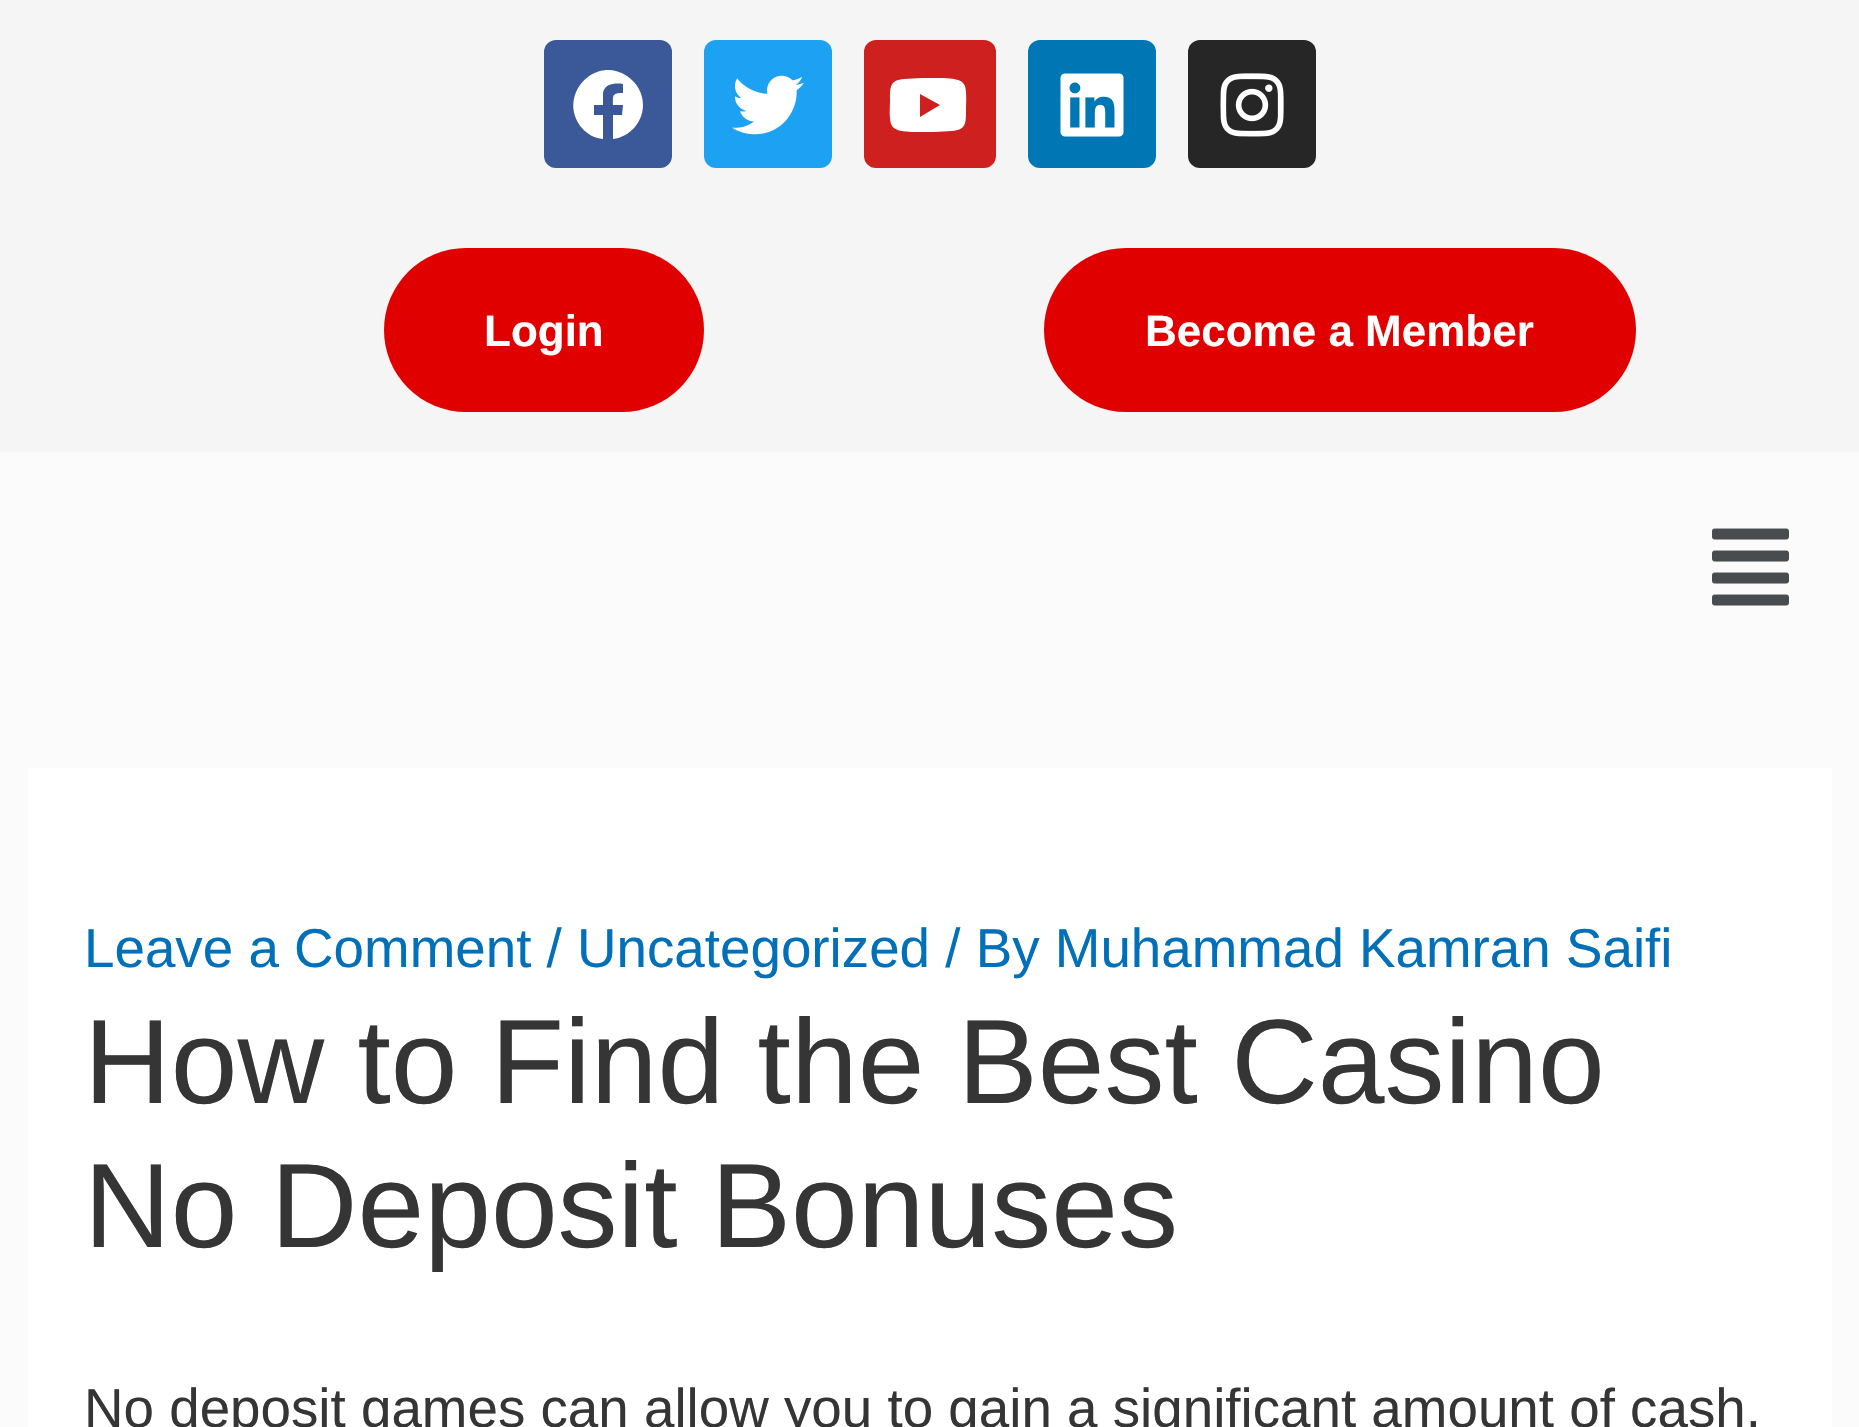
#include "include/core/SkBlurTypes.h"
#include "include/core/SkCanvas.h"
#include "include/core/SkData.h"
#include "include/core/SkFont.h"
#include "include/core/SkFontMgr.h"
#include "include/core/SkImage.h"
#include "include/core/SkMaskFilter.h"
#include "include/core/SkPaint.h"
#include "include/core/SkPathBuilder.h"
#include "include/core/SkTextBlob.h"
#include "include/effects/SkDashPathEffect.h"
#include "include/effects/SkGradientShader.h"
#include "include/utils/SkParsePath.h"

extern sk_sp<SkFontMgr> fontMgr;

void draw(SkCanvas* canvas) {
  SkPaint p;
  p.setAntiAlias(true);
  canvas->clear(SkColorSetRGB(251, 251, 251));
  p.setColor(SkColorSetRGB(245, 245, 245));
  canvas->drawRect(SkRect::MakeLTRB(0, 0, 1859, 452), p);
  p.setColor(SkColorSetRGB(59, 89, 152));
  canvas->drawRoundRect(SkRect::MakeLTRB(544, 40, 672, 168), 12, 12, p);
  p.setColor(SK_ColorWHITE);
  canvas->drawPath(SkPathBuilder().moveTo(643, 105).cubicTo(643, 122, 630, 137, 613, 139).lineTo(613, 115).lineTo(622, 115).lineTo(623, 105).lineTo(613, 105).cubicTo(613, 95, 612, 93, 623, 93).lineTo(623, 84).cubicTo(616, 83, 605, 83, 603, 93).lineTo(603, 105).lineTo(594, 105).lineTo(594, 115).lineTo(603, 115).lineTo(603, 139).cubicTo(594, 138, 587, 134, 582, 128).cubicTo(556, 97, 594, 54, 627, 76).cubicTo(637, 83, 643, 93, 643, 105).close().detach(), p);
  p.setColor(SkColorSetRGB(29, 161, 242));
  canvas->drawRoundRect(SkRect::MakeLTRB(704, 40, 832, 168), 12, 12, p);
  canvas->drawImageRect(SkImages::DeferredFromEncodedData(SkData::MakeFromFileName("images/1.png")), SkRect::MakeLTRB(732, 75, 804, 135), SkSamplingOptions());
  p.setColor(SkColorSetRGB(205, 32, 31));
  canvas->drawRoundRect(SkRect::MakeLTRB(864, 40, 996, 168), 12, 12, p);
  p.setColor(SK_ColorWHITE);
  canvas->drawPath(SkPathBuilder().moveTo(965, 86).cubicTo(967, 94, 966, 103, 966, 111).cubicTo(966, 123, 966, 130, 952, 131).lineTo(934, 132).lineTo(912, 132).cubicTo(905, 131, 894, 132, 891, 124).cubicTo(889, 116, 890, 107, 890, 99).cubicTo(890, 87, 890, 80, 904, 79).lineTo(922, 78).lineTo(944, 78).cubicTo(951, 79, 962, 78, 965, 86).close().moveTo(920, 117).lineTo(940, 105).lineTo(920, 94).close().detach(), p);
  p.setColor(SkColorSetRGB(0, 119, 181));
  canvas->drawRoundRect(SkRect::MakeLTRB(1028, 40, 1156, 168), 12, 12, p);
  canvas->drawImageRect(SkImages::DeferredFromEncodedData(SkData::MakeFromFileName("images/2.png")), SkRect::MakeLTRB(1060, 73, 1124, 137), SkSamplingOptions());
  p.setColor(SkColorSetRGB(38, 38, 38));
  canvas->drawRoundRect(SkRect::MakeLTRB(1188, 40, 1316, 168), 12, 12, p);
  canvas->drawImageRect(SkImages::DeferredFromEncodedData(SkData::MakeFromFileName("images/3.png")), SkRect::MakeLTRB(1220, 73, 1284, 137), SkSamplingOptions());
  p.setColor(SkColorSetRGB(224, 0, 0));
  canvas->drawRoundRect(SkRect::MakeLTRB(384, 248, 704, 412), 82, 82, p);
  canvas->drawRoundRect(SkRect::MakeLTRB(1044, 248, 1636, 412), 82, 82, p);
  canvas->drawImageRect(SkImages::DeferredFromEncodedData(SkData::MakeFromFileName("images/4.png")), SkRect::MakeLTRB(1712, 528, 1789, 606), SkSamplingOptions());
  p.setColor(SK_ColorWHITE);
  canvas->drawRect(SkRect::MakeLTRB(28, 768, 1832, 1427), p);
  SkFont font1(fontMgr->matchFamilyStyle("Liberation Sans", SkFontStyle::Bold()), 44);
  font1.setSubpixel(true);
  canvas->drawString("Login", 484, 346, font1, p);
  canvas->drawString("Become a Member", 1145, 346, font1, p);
  SkFont font2(fontMgr->matchFamilyStyle("Liberation Sans", SkFontStyle::Normal()), 54.75f);
  font2.setSubpixel(true);
  p.setColor(SkColorSetRGB(1, 112, 185));
  canvas->drawString("Leave a Comment / Uncategorized / By Muhammad Kamran Saifi", 84, 967, font2, p);
  SkFont font3(fontMgr->matchFamilyStyle("Liberation Sans", SkFontStyle::Normal()), 120);
  font3.setSubpixel(true);
  p.setColor(SkColorSetRGB(53, 53, 53));
  canvas->drawString("How to Find the Best Casino", 84, 1103, font3, p);
  canvas->drawString("No Deposit Bonuses", 84, 1247, font3, p);
  canvas->drawString("No deposit games can allow you to gain a significant amount of cash.", 84, 1427, font2, p);
}
